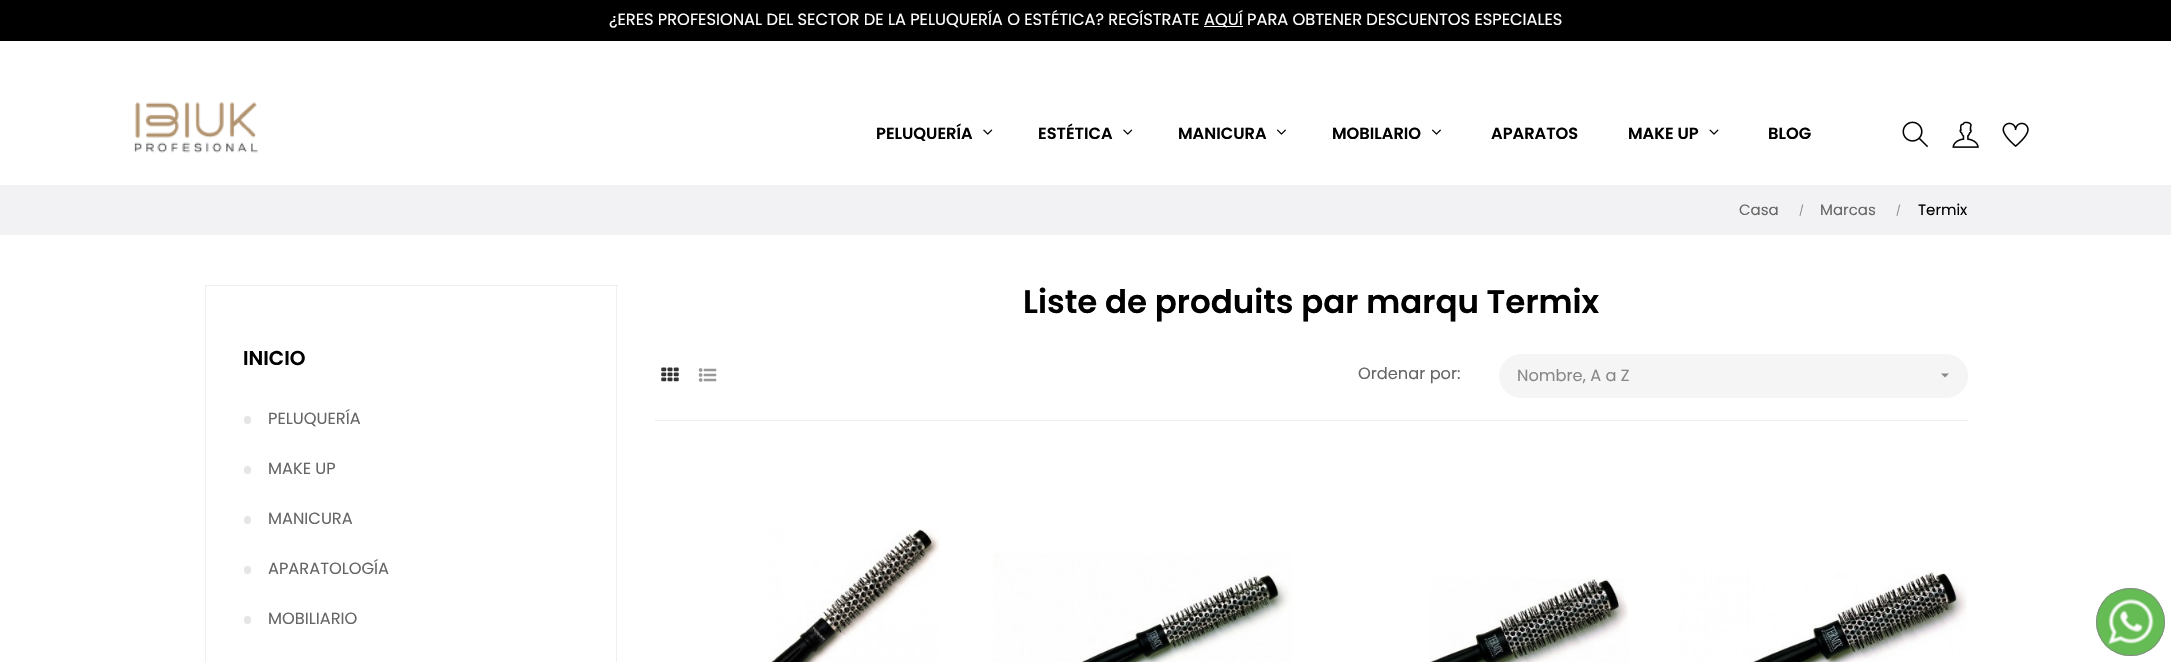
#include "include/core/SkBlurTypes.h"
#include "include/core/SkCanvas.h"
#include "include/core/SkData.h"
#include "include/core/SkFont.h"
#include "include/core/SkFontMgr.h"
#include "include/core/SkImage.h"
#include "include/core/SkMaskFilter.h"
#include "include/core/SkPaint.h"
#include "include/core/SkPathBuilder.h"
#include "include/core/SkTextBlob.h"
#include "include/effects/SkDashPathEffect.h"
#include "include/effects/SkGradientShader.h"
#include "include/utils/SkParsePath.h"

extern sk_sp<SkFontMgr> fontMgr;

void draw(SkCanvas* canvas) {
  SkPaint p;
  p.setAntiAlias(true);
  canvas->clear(SK_ColorWHITE);
  p.setColor(SK_ColorBLACK);
  canvas->drawRect(SkRect::MakeLTRB(0, 0, 2171, 41), p);
  p.setColor(SK_ColorWHITE);
  canvas->drawRect(SkRect::MakeLTRB(1204, 26, 1243, 27), p);
  canvas->drawImageRect(SkImages::DeferredFromEncodedData(SkData::MakeFromFileName("images/1.png")), SkRect::MakeLTRB(134, 102, 258, 153), SkSamplingOptions());
  canvas->drawImageRect(SkImages::DeferredFromEncodedData(SkData::MakeFromFileName("images/2.png")), SkRect::MakeLTRB(983, 129, 993, 135), SkSamplingOptions());
  canvas->drawImageRect(SkImages::DeferredFromEncodedData(SkData::MakeFromFileName("images/2.png")), SkRect::MakeLTRB(1123, 129, 1133, 135), SkSamplingOptions());
  canvas->drawImageRect(SkImages::DeferredFromEncodedData(SkData::MakeFromFileName("images/3.png")), SkRect::MakeLTRB(1277, 129, 1286, 135), SkSamplingOptions());
  canvas->drawImageRect(SkImages::DeferredFromEncodedData(SkData::MakeFromFileName("images/3.png")), SkRect::MakeLTRB(1432, 129, 1441, 135), SkSamplingOptions());
  canvas->drawImageRect(SkImages::DeferredFromEncodedData(SkData::MakeFromFileName("images/4.png")), SkRect::MakeLTRB(1709, 129, 1719, 135), SkSamplingOptions());
  canvas->drawImageRect(SkImages::DeferredFromEncodedData(SkData::MakeFromFileName("images/5.png")), SkRect::MakeLTRB(1902, 121, 1928, 148), SkSamplingOptions());
  canvas->drawImageRect(SkImages::DeferredFromEncodedData(SkData::MakeFromFileName("images/6.png")), SkRect::MakeLTRB(1952, 121, 1979, 148), SkSamplingOptions());
  canvas->drawImageRect(SkImages::DeferredFromEncodedData(SkData::MakeFromFileName("images/7.png")), SkRect::MakeLTRB(2002, 122, 2029, 147), SkSamplingOptions());
  p.setColor(SkColorSetRGB(242, 242, 244));
  canvas->drawRect(SkRect::MakeLTRB(0, 185, 2171, 235), p);
  p.setColor(SkColorSetRGB(238, 238, 238));
  canvas->drawRect(SkRect::MakeLTRB(655, 420, 1968, 421), p);
  canvas->drawImageRect(SkImages::DeferredFromEncodedData(SkData::MakeFromFileName("images/8.png")), SkRect::MakeLTRB(661, 367, 679, 382), SkSamplingOptions());
  canvas->drawImageRect(SkImages::DeferredFromEncodedData(SkData::MakeFromFileName("images/9.png")), SkRect::MakeLTRB(698, 368, 717, 382), SkSamplingOptions());
  p.setColor(SkColorSetRGB(245, 245, 245));
  canvas->drawRoundRect(SkRect::MakeLTRB(1499, 354, 1968, 398), 22, 22, p);
  p.setColor(SkColorSetRGB(136, 136, 136));
  canvas->drawPath(SkPathBuilder().moveTo(1941, 373.5f).lineTo(1949, 373.5f).lineTo(1945, 377.5f).close().detach(), p);
  canvas->drawImageRect(SkImages::DeferredFromEncodedData(SkData::MakeFromFileName("images/10.png")), SkRect::MakeLTRB(769, 529, 940, 662), SkSamplingOptions());
  canvas->drawImageRect(SkImages::DeferredFromEncodedData(SkData::MakeFromFileName("images/11.png")), SkRect::MakeLTRB(993, 553, 1292, 662), SkSamplingOptions());
  canvas->drawImageRect(SkImages::DeferredFromEncodedData(SkData::MakeFromFileName("images/12.png")), SkRect::MakeLTRB(1429, 578, 1629, 662), SkSamplingOptions());
  canvas->drawImageRect(SkImages::DeferredFromEncodedData(SkData::MakeFromFileName("images/13.png")), SkRect::MakeLTRB(1679, 570, 1967, 662), SkSamplingOptions());
  p.setColor(SkColorSetRGB(239, 239, 239));
  canvas->drawRect(SkRect::MakeLTRB(205, 285, 618, 286), p);
  canvas->drawRect(SkRect::MakeLTRB(616, 285, 617, 662), p);
  canvas->drawRect(SkRect::MakeLTRB(205, 285, 206, 662), p);
  p.setColor(SkColorSetRGB(229, 229, 229));
  canvas->drawRoundRect(SkRect::MakeLTRB(244, 416, 251, 424), 3.5f, 3.5f, p);
  canvas->drawRoundRect(SkRect::MakeLTRB(244, 466, 251, 474), 3.5f, 3.5f, p);
  canvas->drawRoundRect(SkRect::MakeLTRB(244, 516, 251, 524), 3.5f, 3.5f, p);
  canvas->drawRoundRect(SkRect::MakeLTRB(244, 566, 251, 574), 3.5f, 3.5f, p);
  canvas->drawRoundRect(SkRect::MakeLTRB(244, 616, 251, 624), 3.5f, 3.5f, p);
  p.setColor(SkColorSetRGB(101, 188, 84));
  canvas->drawRoundRect(SkRect::MakeLTRB(2096, 588, 2165, 656), 34, 34, p);
  canvas->drawImageRect(SkImages::DeferredFromEncodedData(SkData::MakeFromFileName("images/14.png")), SkRect::MakeLTRB(2102, 593, 2160, 651), SkSamplingOptions());
  p.setStyle(SkPaint::kStroke_Style);
  p.setStrokeWidth(1);
  p.setColor(SkColorSetRGB(136, 136, 136));
  canvas->drawRoundRect(SkRect::MakeLTRB(2096.5f, 588.5f, 2164.5f, 655.5f), 33.5f, 33.5f, p);
  SkFont font1(fontMgr->matchFamilyStyle("Poppins", SkFontStyle::Normal()), 16.25f);
  font1.setSubpixel(true);
  p.setStyle(SkPaint::kFill_Style);
  p.setColor(SK_ColorWHITE);
  canvas->drawString("¿ERES PROFESIONAL DEL SECTOR DE LA PELUQUERÍA O ESTÉTICA? REGÍSTRATE", 609, 25, font1, p);
  canvas->drawString("AQUÍ PARA OBTENER DESCUENTOS ESPECIALES", 1204, 25, font1, p);
  SkFont font2(fontMgr->matchFamilyStyle("Poppins", SkFontStyle(600, SkFontStyle::kNormal_Width, SkFontStyle::kUpright_Slant)), 16.25f);
  font2.setSubpixel(true);
  p.setColor(SK_ColorBLACK);
  canvas->drawString("PELUQUERÍA", 876, 139, font2, p);
  canvas->drawString("ESTÉTICA", 1038, 139, font2, p);
  canvas->drawString("MANICURA", 1178, 139, font2, p);
  canvas->drawString("MOBILARIO", 1332, 139, font2, p);
  canvas->drawString("APARATOS", 1491, 139, font2, p);
  canvas->drawString("MAKE UP", 1628, 139, font2, p);
  canvas->drawString("BLOG", 1768, 139, font2, p);
  SkFont font3(fontMgr->matchFamilyStyle("Poppins", SkFontStyle::Normal()), 15);
  font3.setSubpixel(true);
  p.setColor(SkColorSetRGB(102, 102, 102));
  canvas->drawString("Casa", 1739, 215, font3, p);
  SkFont font4(fontMgr->matchFamilyStyle("Poppins", SkFontStyle::Normal()), 10);
  font4.setSubpixel(true);
  p.setColor(SkColorSetRGB(136, 136, 136));
  canvas->drawString("/", 1799, 214, font4, p);
  p.setColor(SkColorSetRGB(102, 102, 102));
  canvas->drawString("Marcas", 1820, 215, font3, p);
  p.setColor(SkColorSetRGB(136, 136, 136));
  canvas->drawString("/", 1896, 214, font4, p);
  p.setColor(SK_ColorBLACK);
  canvas->drawString("Termix", 1918, 215, font3, p);
  SkFont font5(fontMgr->matchFamilyStyle("Poppins", SkFontStyle(600, SkFontStyle::kNormal_Width, SkFontStyle::kUpright_Slant)), 32.5f);
  font5.setSubpixel(true);
  canvas->drawString("Liste de produits par marqu Termix", 1023, 313, font5, p);
  p.setColor(SkColorSetRGB(102, 102, 102));
  canvas->drawString("Ordenar por:", 1358, 379, font1, p);
  p.setColor(SkColorSetRGB(136, 136, 136));
  canvas->drawString("Nombre, A a Z", 1517, 381, font1, p);
  SkFont font6(fontMgr->matchFamilyStyle("Poppins", SkFontStyle(600, SkFontStyle::kNormal_Width, SkFontStyle::kUpright_Slant)), 20);
  font6.setSubpixel(true);
  p.setColor(SK_ColorBLACK);
  canvas->drawString("INICIO", 243, 365, font6, p);
  p.setColor(SkColorSetRGB(102, 102, 102));
  canvas->drawString("PELUQUERÍA", 268, 424, font1, p);
  canvas->drawString("MAKE UP", 268, 474, font1, p);
  canvas->drawString("MANICURA", 268, 524, font1, p);
  canvas->drawString("APARATOLOGÍA", 268, 574, font1, p);
  canvas->drawString("MOBILIARIO", 268, 624, font1, p);
}
